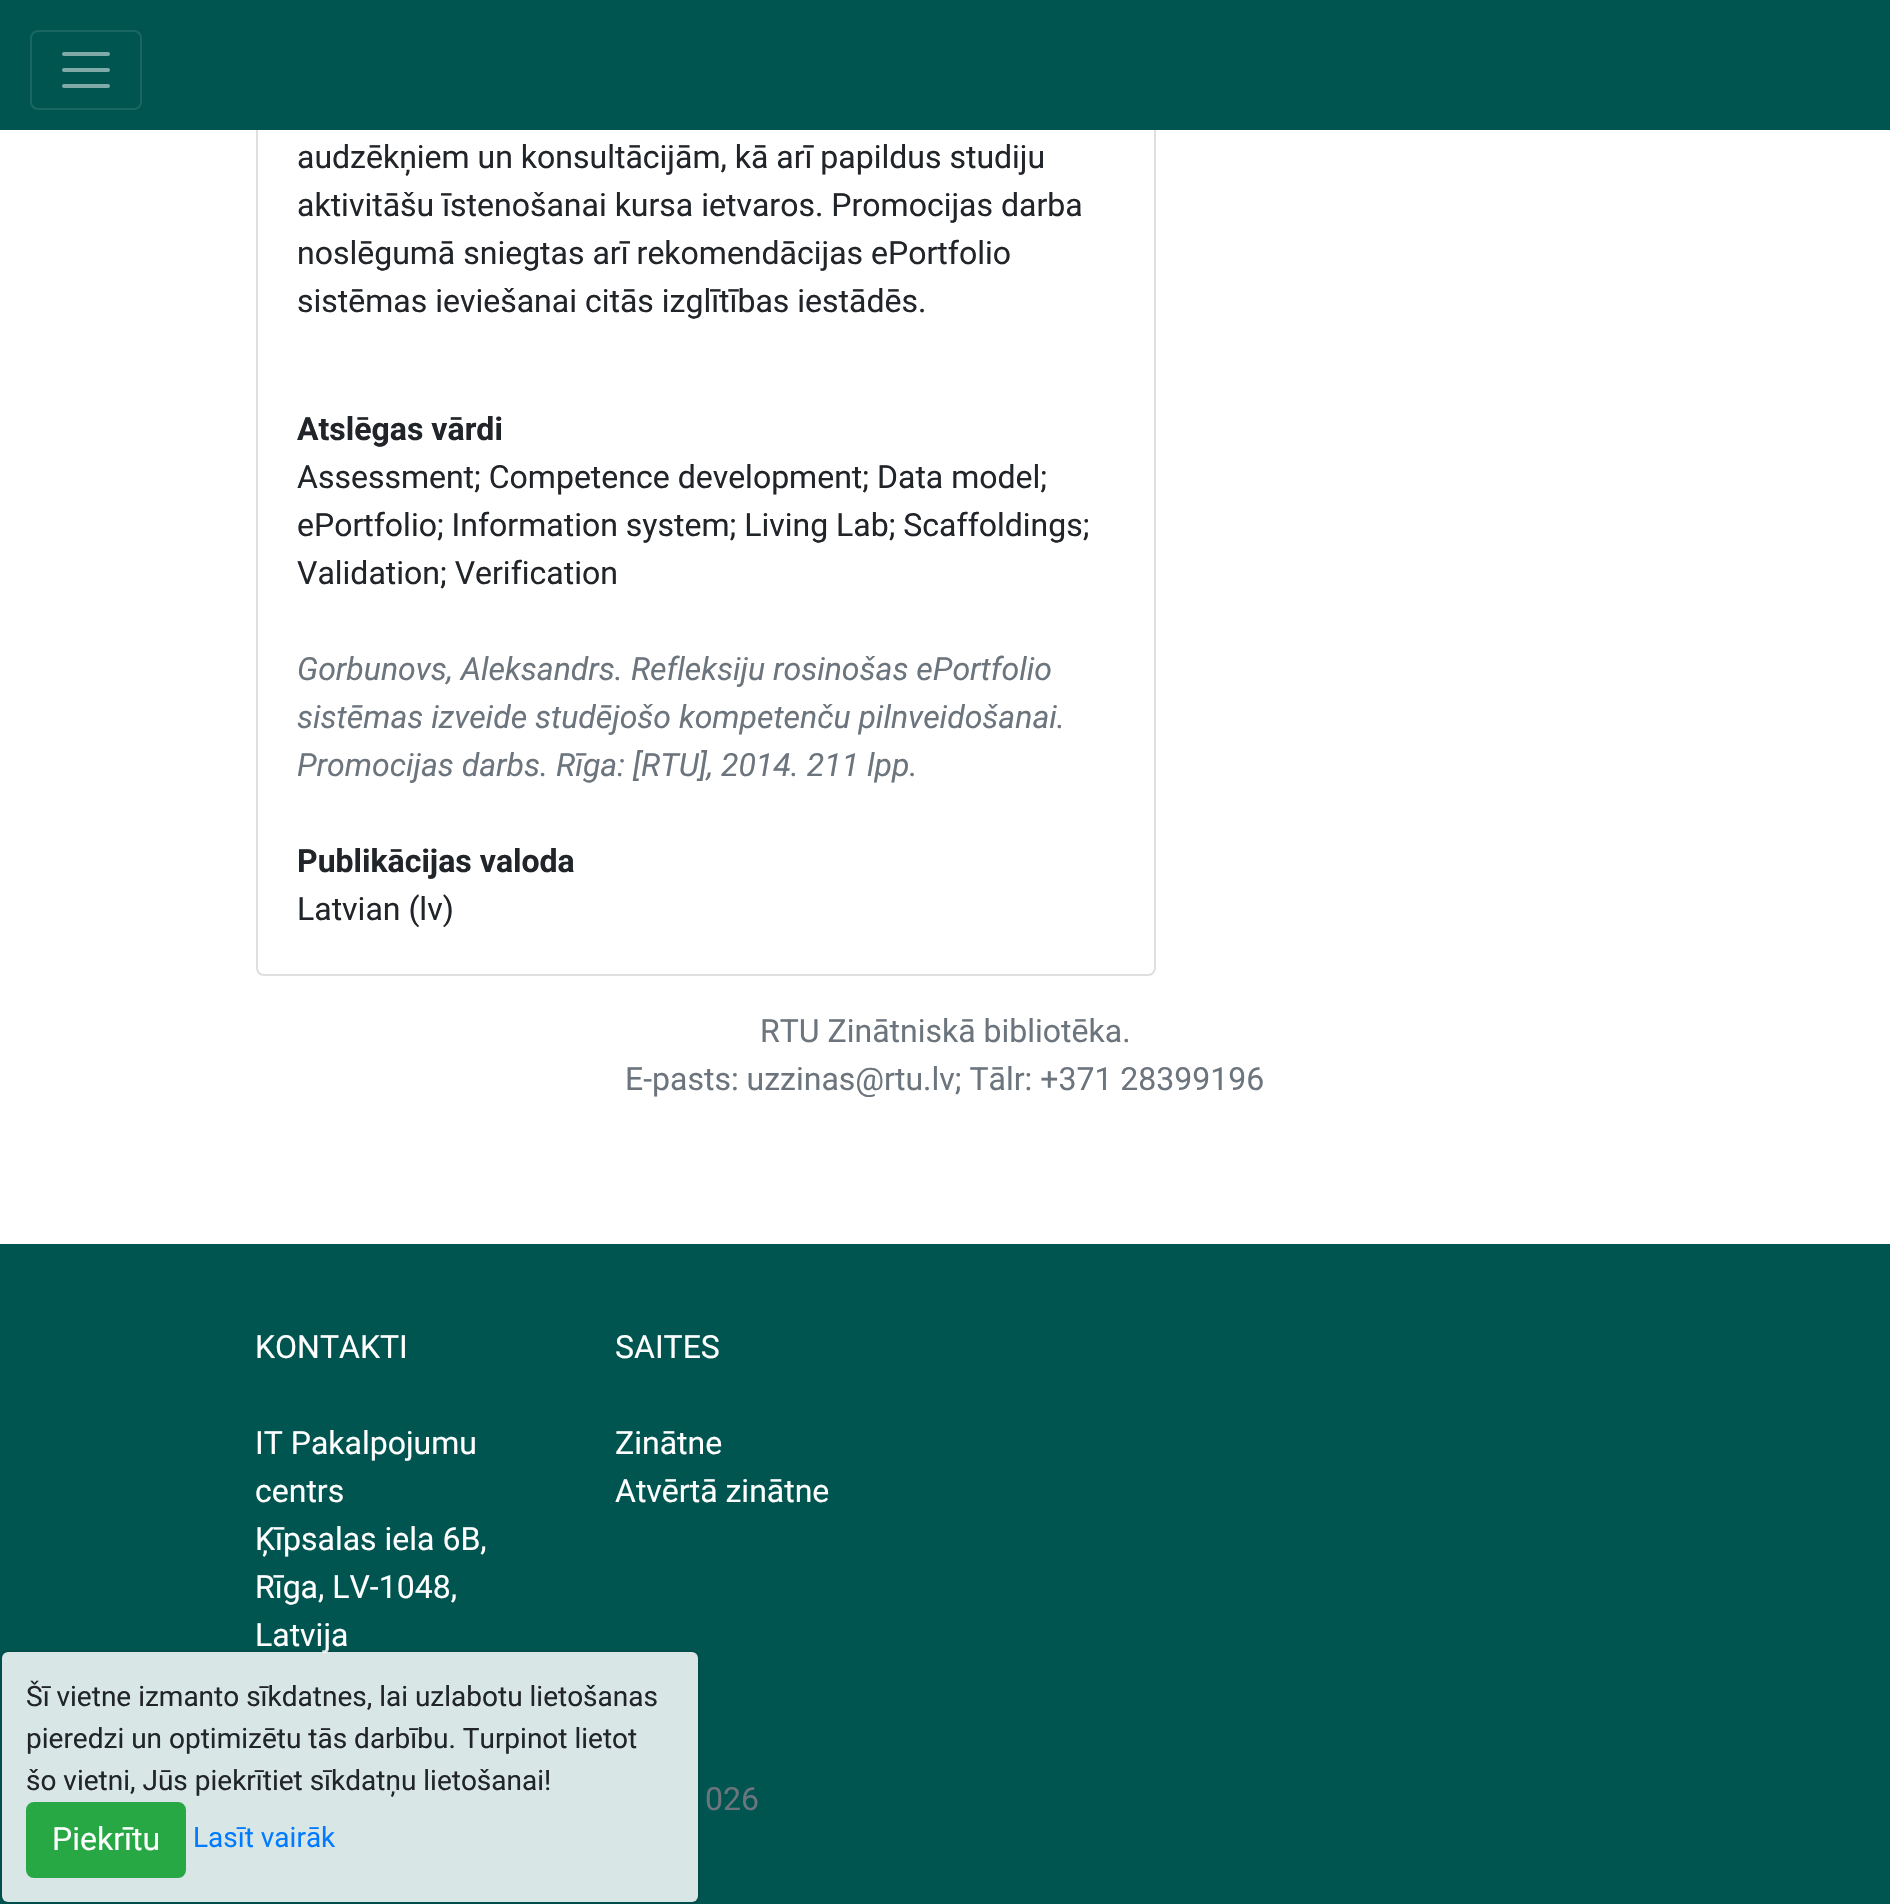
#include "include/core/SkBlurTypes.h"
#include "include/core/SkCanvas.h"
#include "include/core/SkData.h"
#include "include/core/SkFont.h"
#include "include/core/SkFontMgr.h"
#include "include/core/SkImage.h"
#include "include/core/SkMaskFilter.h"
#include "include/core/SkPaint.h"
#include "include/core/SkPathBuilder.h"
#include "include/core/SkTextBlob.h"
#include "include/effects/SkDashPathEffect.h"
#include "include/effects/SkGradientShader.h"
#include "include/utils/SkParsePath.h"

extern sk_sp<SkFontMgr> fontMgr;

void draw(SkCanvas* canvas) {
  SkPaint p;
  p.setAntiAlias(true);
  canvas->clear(SK_ColorWHITE);
  p.setStyle(SkPaint::kStroke_Style);
  p.setStrokeWidth(2);
  p.setColor(SkColorSetRGB(223, 223, 223));
  canvas->drawRoundRect(SkRect::MakeLTRB(257, -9, 1155, 975), 7, 7, p);
  p.setStyle(SkPaint::kFill_Style);
  p.setColor(SkColorSetRGB(0, 85, 81));
  canvas->drawRect(SkRect::MakeLTRB(0, 0, 1890, 130), p);
  p.setStyle(SkPaint::kStroke_Style);
  p.setColor(SkColorSetRGB(26, 102, 98));
  canvas->drawRoundRect(SkRect::MakeLTRB(31, 31, 141, 109), 7, 7, p);
  p.setStrokeWidth(4);
  p.setStrokeCap(SkPaint::kRound_Cap);
  p.setColor(SkColorSetRGB(128, 170, 168));
  canvas->drawPath(SkPathBuilder().moveTo(64, 54).lineTo(108, 54).moveTo(64, 70).lineTo(108, 70).moveTo(64, 86).lineTo(108, 86).detach(), p);
  p.setStyle(SkPaint::kFill_Style);
  p.setColor(SkColorSetRGB(0, 85, 81));
  canvas->drawRect(SkRect::MakeLTRB(0, 1244, 1890, 1904), p);
  SkFont font1(fontMgr->matchFamilyStyle("Roboto", SkFontStyle::Normal()), 32);
  font1.setSubpixel(true);
  p.setColor(SkColorSetRGB(33, 37, 41));
  canvas->drawString("audzēkņiem un konsultācijām, kā arī papildus studiju", 297, 168, font1, p);
  canvas->drawString("aktivitāšu īstenošanai kursa ietvaros. Promocijas darba", 297, 216, font1, p);
  canvas->drawString("noslēgumā sniegtas arī rekomendācijas ePortfolio", 297, 264, font1, p);
  canvas->drawString("sistēmas ieviešanai citās izglītības iestādēs.", 297, 312, font1, p);
  SkFont font2(fontMgr->matchFamilyStyle("Roboto", SkFontStyle::Bold()), 32);
  font2.setSubpixel(true);
  canvas->drawString("Atslēgas vārdi", 297, 440, font2, p);
  canvas->drawString("Assessment; Competence development; Data model;", 297, 488, font1, p);
  canvas->drawString("ePortfolio; Information system; Living Lab; Scaffoldings;", 297, 536, font1, p);
  canvas->drawString("Validation; Verification", 297, 584, font1, p);
  SkFont font3(fontMgr->matchFamilyStyle("Roboto", SkFontStyle::Italic()), 32);
  font3.setSubpixel(true);
  p.setColor(SkColorSetRGB(108, 117, 125));
  canvas->drawString("Gorbunovs, Aleksandrs. Refleksiju rosinošas ePortfolio", 297, 680, font3, p);
  canvas->drawString("sistēmas izveide studējošo kompetenču pilnveidošanai.", 297, 728, font3, p);
  canvas->drawString("Promocijas darbs. Rīga: [RTU], 2014. 211 lpp.", 297, 776, font3, p);
  p.setColor(SkColorSetRGB(33, 37, 41));
  canvas->drawString("Publikācijas valoda", 297, 872, font2, p);
  canvas->drawString("Latvian (lv)", 297, 920, font1, p);
  p.setColor(SkColorSetRGB(108, 117, 125));
  canvas->drawString("RTU Zinātniskā bibliotēka.", 760, 1042, font1, p);
  canvas->drawString("E-pasts: uzzinas@rtu.lv; Tālr: +371 28399196", 625, 1090, font1, p);
  p.setColor(SK_ColorWHITE);
  canvas->drawString("KONTAKTI", 255, 1358, font1, p);
  canvas->drawString("IT Pakalpojumu", 255, 1454, font1, p);
  canvas->drawString("centrs", 255, 1502, font1, p);
  canvas->drawString("Ķīpsalas iela 6B,", 255, 1550, font1, p);
  canvas->drawString("Rīga, LV-1048,", 255, 1598, font1, p);
  canvas->drawString("Latvija", 255, 1646, font1, p);
  canvas->drawString("SAITES", 615, 1358, font1, p);
  canvas->drawString("Zinātne", 615, 1454, font1, p);
  canvas->drawString("Atvērtā zinātne", 615, 1502, font1, p);
  p.setColor(SkColorSetRGB(108, 117, 125));
  canvas->drawString("026", 705, 1810, font1, p);
  p.setColor(SkColorSetARGB(217, 255, 255, 255));
  canvas->drawRoundRect(SkRect::MakeLTRB(2, 1652, 698, 1902), 6, 6, p);
  p.setStyle(SkPaint::kStroke_Style);
  p.setStrokeWidth(2);
  p.setStrokeCap(SkPaint::kButt_Cap);
  p.setColor(SkColorSetARGB(26, 0, 0, 0));
  canvas->drawRoundRect(SkRect::MakeLTRB(1, 1651, 699, 1903), 7, 7, p);
  SkFont font4(fontMgr->matchFamilyStyle("Roboto", SkFontStyle::Normal()), 28);
  font4.setSubpixel(true);
  p.setStyle(SkPaint::kFill_Style);
  p.setColor(SkColorSetRGB(33, 37, 41));
  canvas->drawString("Šī vietne izmanto sīkdatnes, lai uzlabotu lietošanas", 26, 1706, font4, p);
  canvas->drawString("pieredzi un optimizētu tās darbību. Turpinot lietot", 26, 1748, font4, p);
  canvas->drawString("šo vietni, Jūs piekrītiet sīkdatņu lietošanai!", 26, 1790, font4, p);
  p.setColor(SkColorSetRGB(40, 167, 69));
  canvas->drawRoundRect(SkRect::MakeLTRB(27, 1803, 185, 1877), 7, 7, p);
  p.setStyle(SkPaint::kStroke_Style);
  canvas->drawRoundRect(SkRect::MakeLTRB(27, 1803, 185, 1877), 7, 7, p);
  p.setStyle(SkPaint::kFill_Style);
  p.setColor(SK_ColorWHITE);
  canvas->drawString("Piekrītu", 52, 1850, font1, p);
  p.setColor(SkColorSetRGB(0, 123, 255));
  canvas->drawString("Lasīt vairāk", 193, 1847, font4, p);
}
